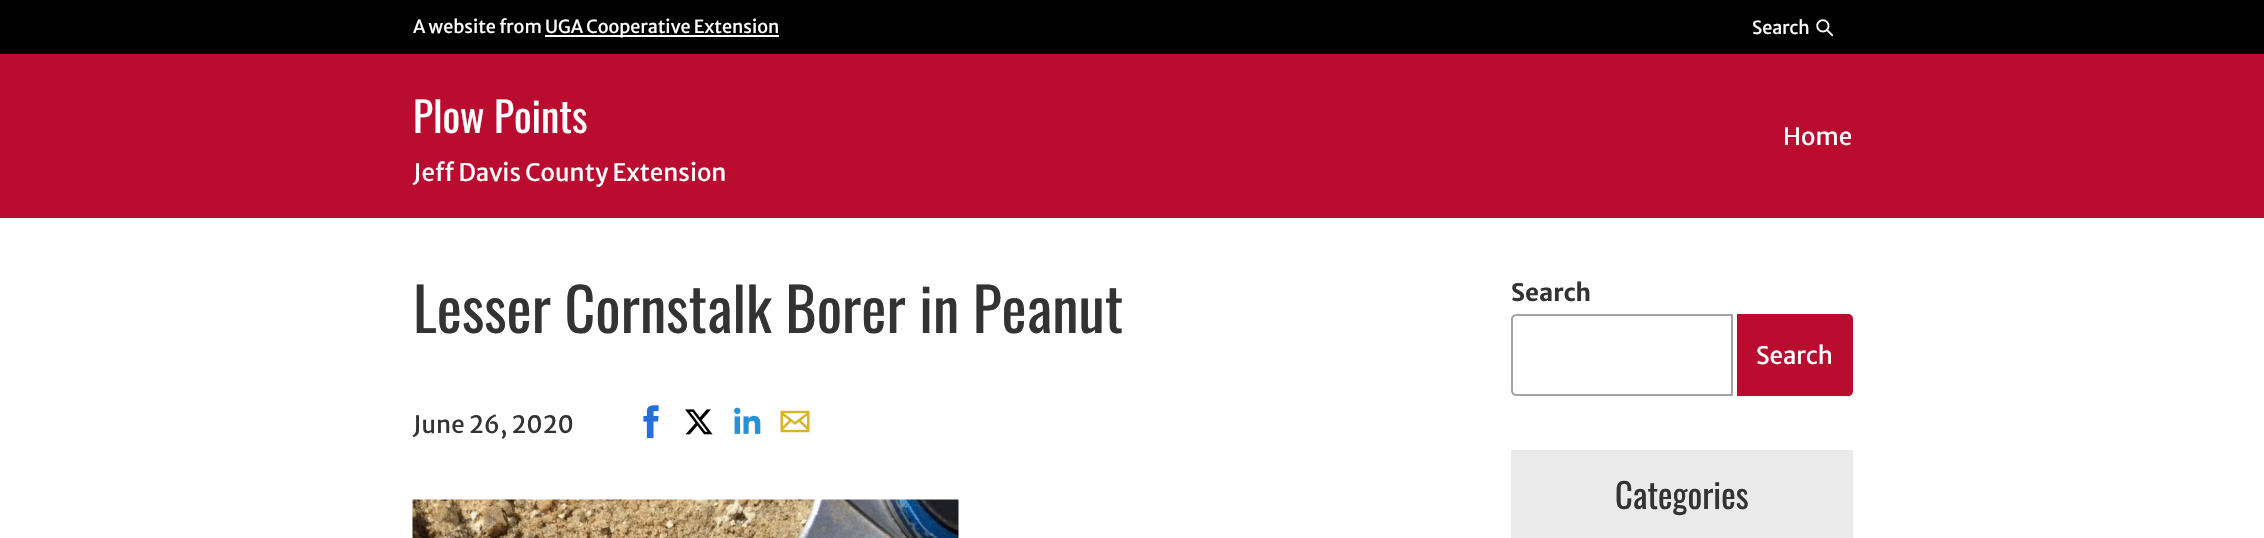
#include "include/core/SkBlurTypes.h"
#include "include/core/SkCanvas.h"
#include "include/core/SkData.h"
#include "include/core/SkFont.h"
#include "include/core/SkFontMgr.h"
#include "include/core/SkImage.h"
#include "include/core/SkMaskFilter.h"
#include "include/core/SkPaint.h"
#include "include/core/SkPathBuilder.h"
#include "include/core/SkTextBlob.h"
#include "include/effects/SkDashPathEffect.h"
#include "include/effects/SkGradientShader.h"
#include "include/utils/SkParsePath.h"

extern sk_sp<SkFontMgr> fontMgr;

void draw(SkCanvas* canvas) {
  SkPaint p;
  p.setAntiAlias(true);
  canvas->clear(SK_ColorWHITE);
  p.setColor(SK_ColorBLACK);
  canvas->drawRect(SkRect::MakeLTRB(0, 0, 2264, 54), p);
  p.setColor(SK_ColorWHITE);
  canvas->drawRect(SkRect::MakeLTRB(545, 35, 779, 37), p);
  canvas->drawImageRect(SkImages::DeferredFromEncodedData(SkData::MakeFromFileName("images/1.png")), SkRect::MakeLTRB(1816, 19, 1834, 37), SkSamplingOptions());
  p.setColor(SkColorSetRGB(186, 12, 47));
  canvas->drawRect(SkRect::MakeLTRB(0, 54, 2264, 218), p);
  canvas->drawImageRect(SkImages::DeferredFromEncodedData(SkData::MakeFromFileName("images/2.png")), SkRect::MakeLTRB(643, 405, 659, 439), SkSamplingOptions());
  canvas->drawImageRect(SkImages::DeferredFromEncodedData(SkData::MakeFromFileName("images/3.png")), SkRect::MakeLTRB(685, 409, 713, 435), SkSamplingOptions());
  canvas->drawImageRect(SkImages::DeferredFromEncodedData(SkData::MakeFromFileName("images/4.png")), SkRect::MakeLTRB(734, 407, 761, 434), SkSamplingOptions());
  canvas->drawImageRect(SkImages::DeferredFromEncodedData(SkData::MakeFromFileName("images/5.png")), SkRect::MakeLTRB(780, 410, 810, 433), SkSamplingOptions());
  canvas->drawImageRect(SkImages::DeferredFromEncodedData(SkData::MakeFromFileName("images/6.png")), SkRect::MakeLTRB(412, 499, 959, 538), SkSamplingOptions());
  p.setStyle(SkPaint::kStroke_Style);
  p.setStrokeWidth(2);
  p.setColor(SkColorSetRGB(167, 163, 163));
  canvas->drawPath(SkPathBuilder().moveTo(1516, 315).lineTo(1732, 315).lineTo(1732, 395).lineTo(1516, 395).cubicTo(1514, 395, 1512, 393, 1512, 391).lineTo(1512, 319).cubicTo(1512, 317, 1514, 315, 1516, 315).close().detach(), p);
  p.setStyle(SkPaint::kFill_Style);
  p.setColor(SkColorSetRGB(186, 12, 47));
  canvas->drawPath(SkPathBuilder().moveTo(1737, 314).lineTo(1848, 314).cubicTo(1851, 314, 1853, 316, 1853, 319).lineTo(1853, 391).cubicTo(1853, 394, 1851, 396, 1848, 396).lineTo(1737, 396).close().detach(), p);
  p.setColor(SkColorSetRGB(234, 234, 234));
  canvas->drawRect(SkRect::MakeLTRB(1511, 450, 1853, 538), p);
  SkFont font1(fontMgr->matchFamilyStyle("Merriweather Sans", SkFontStyle::Normal()), 18);
  font1.setSubpixel(true);
  p.setColor(SK_ColorWHITE);
  canvas->drawString("A website from", 413, 33, font1, p);
  canvas->drawString("UGA Cooperative Extension", 545, 33, font1, p);
  canvas->drawString("Search", 1752, 34, font1, p);
  SkFont font2(fontMgr->matchFamilyStyle("Oswald", SkFontStyle::Normal()), 41.5f);
  font2.setSubpixel(true);
  canvas->drawString("Plow Points", 413, 133, font2, p);
  SkFont font3(fontMgr->matchFamilyStyle("Merriweather Sans", SkFontStyle::Normal()), 24);
  font3.setSubpixel(true);
  canvas->drawString("Jeff Davis County Extension", 413, 181, font3, p);
  canvas->drawString("Home", 1783, 145, font3, p);
  SkFont font4(fontMgr->matchFamilyStyle("Oswald", SkFontStyle::Normal()), 59.75f);
  font4.setSubpixel(true);
  p.setColor(SkColorSetRGB(51, 51, 51));
  canvas->drawString("Lesser Cornstalk Borer in Peanut", 413, 333, font4, p);
  canvas->drawString("June 26, 2020", 413, 433, font3, p);
  SkFont font5(fontMgr->matchFamilyStyle("Merriweather Sans", SkFontStyle::Bold()), 24);
  font5.setSubpixel(true);
  canvas->drawString("Search", 1511, 301, font5, p);
  p.setColor(SK_ColorWHITE);
  canvas->drawString("Search", 1756, 364, font3, p);
  SkFont font6(fontMgr->matchFamilyStyle("Oswald", SkFontStyle::Normal()), 34.5f);
  font6.setSubpixel(true);
  p.setColor(SkColorSetRGB(51, 51, 51));
  canvas->drawString("Categories", 1615, 509, font6, p);
}
